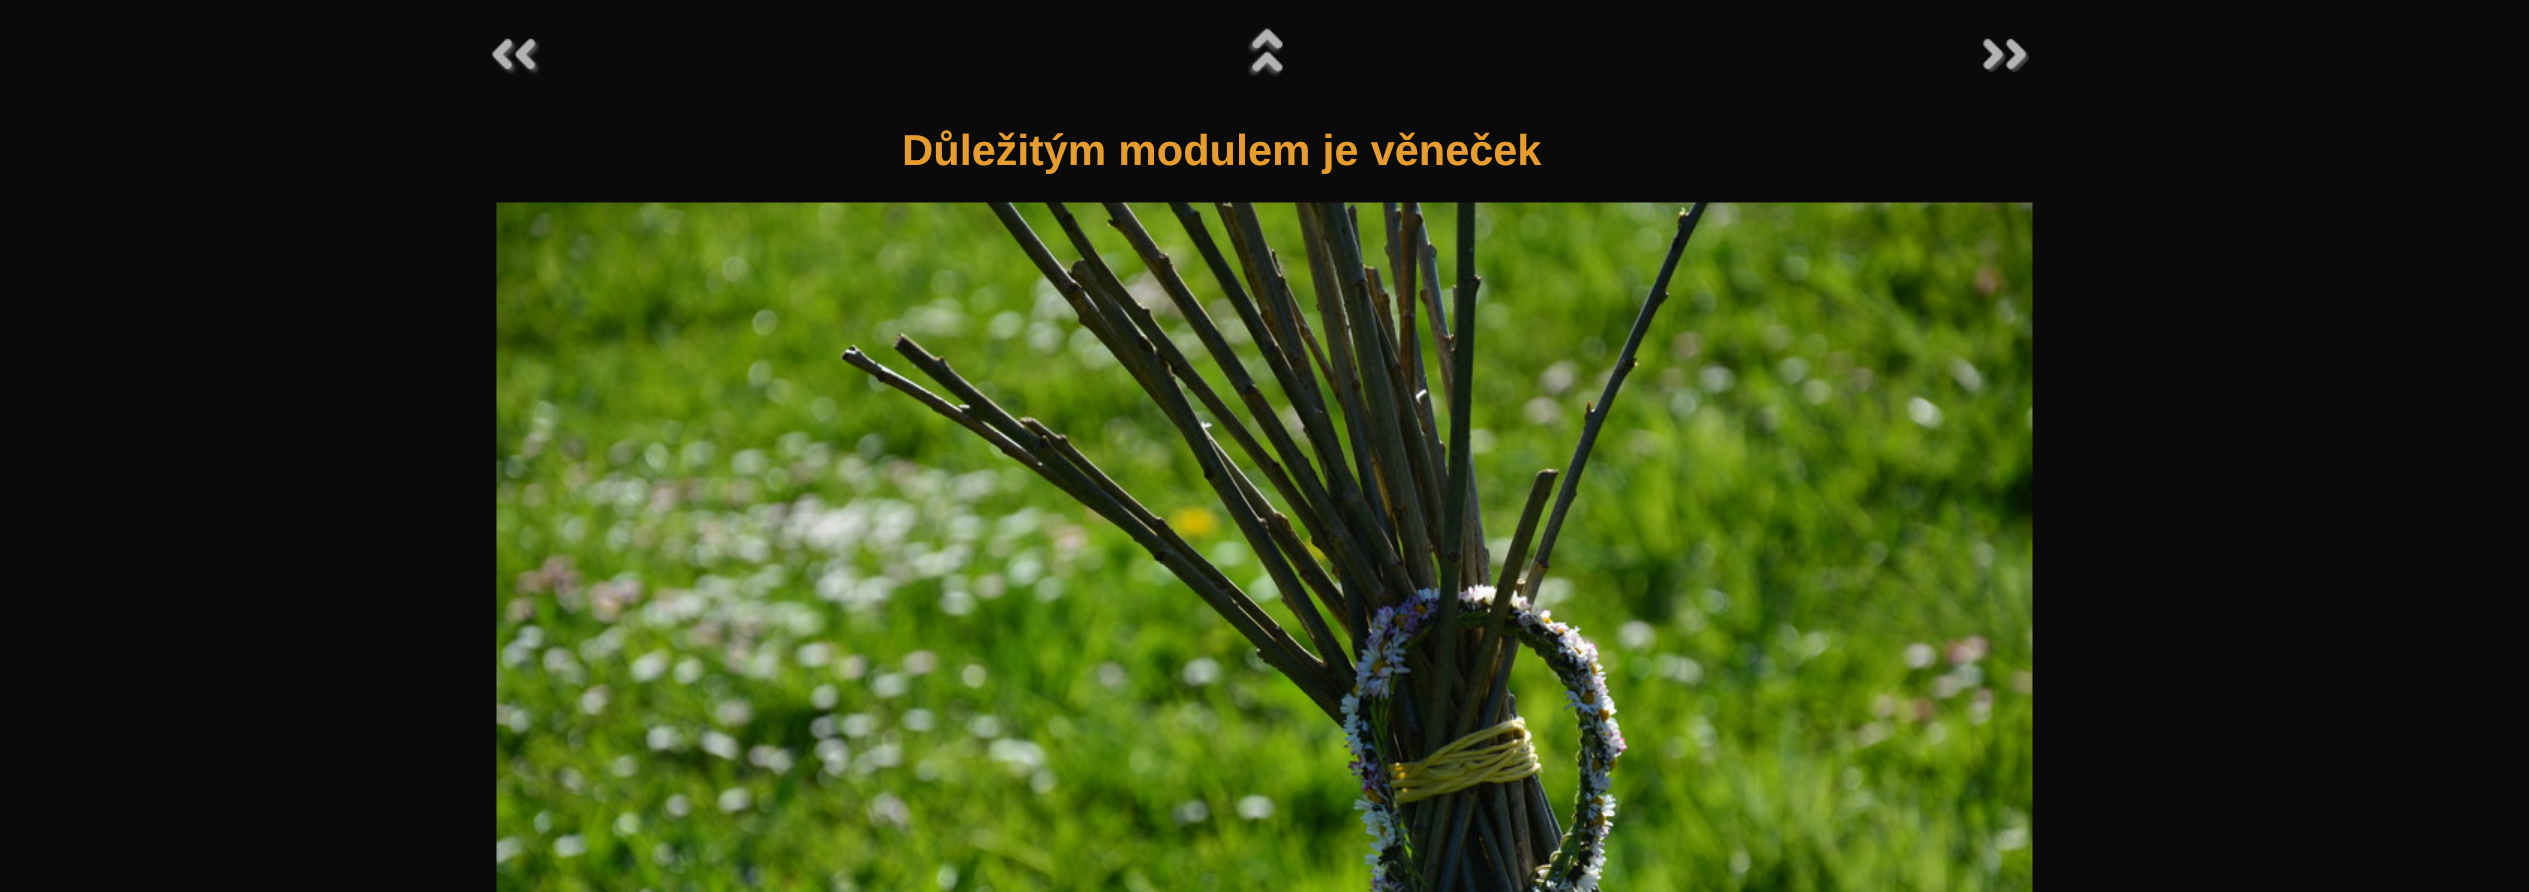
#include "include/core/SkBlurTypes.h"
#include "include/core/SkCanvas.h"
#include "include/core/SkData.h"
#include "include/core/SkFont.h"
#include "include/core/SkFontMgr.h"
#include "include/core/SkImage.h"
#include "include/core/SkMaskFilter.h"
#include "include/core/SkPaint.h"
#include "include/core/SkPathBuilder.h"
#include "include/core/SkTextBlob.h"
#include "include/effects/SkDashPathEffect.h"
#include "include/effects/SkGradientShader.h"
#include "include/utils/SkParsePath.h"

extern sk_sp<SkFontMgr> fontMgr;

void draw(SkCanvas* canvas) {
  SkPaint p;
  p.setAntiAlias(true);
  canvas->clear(SkColorSetRGB(10, 10, 10));
  canvas->drawImageRect(SkImages::DeferredFromEncodedData(SkData::MakeFromFileName("images/1.png")), SkRect::MakeLTRB(491, 38, 540, 75), SkSamplingOptions());
  canvas->drawImageRect(SkImages::DeferredFromEncodedData(SkData::MakeFromFileName("images/2.png")), SkRect::MakeLTRB(1247, 28, 1283, 77), SkSamplingOptions());
  canvas->drawImageRect(SkImages::DeferredFromEncodedData(SkData::MakeFromFileName("images/3.png")), SkRect::MakeLTRB(1982, 38, 2030, 73), SkSamplingOptions());
  canvas->drawImageRect(SkImages::DeferredFromEncodedData(SkData::MakeFromFileName("images/4.png")), SkRect::MakeLTRB(496, 202, 2033, 892), SkSamplingOptions());
  SkFont font1(fontMgr->matchFamilyStyle("Liberation Sans", SkFontStyle::Bold()), 43.25f);
  font1.setSubpixel(true);
  p.setColor(SkColorSetRGB(230, 157, 46));
  canvas->drawString("Důležitým modulem je věneček", 902, 165, font1, p);
}
